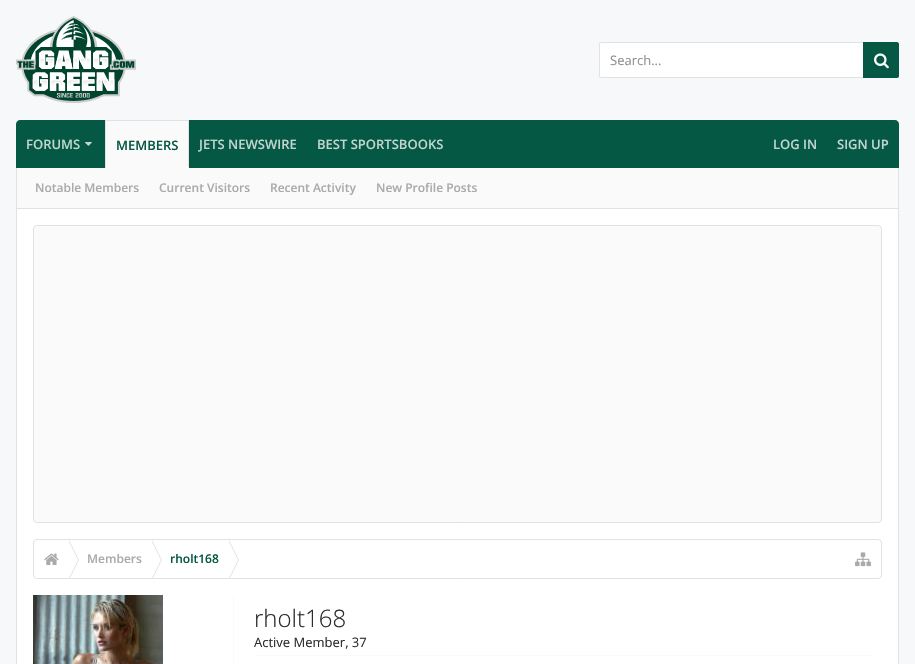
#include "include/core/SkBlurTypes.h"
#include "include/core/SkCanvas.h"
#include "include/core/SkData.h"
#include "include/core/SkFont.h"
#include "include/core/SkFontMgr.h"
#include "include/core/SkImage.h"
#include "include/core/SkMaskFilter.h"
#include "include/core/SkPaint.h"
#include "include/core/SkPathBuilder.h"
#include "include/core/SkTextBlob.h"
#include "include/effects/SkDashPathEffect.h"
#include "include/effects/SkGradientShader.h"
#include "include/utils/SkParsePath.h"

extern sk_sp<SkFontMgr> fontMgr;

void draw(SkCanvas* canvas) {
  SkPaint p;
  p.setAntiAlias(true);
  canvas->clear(SkColorSetRGB(246, 248, 249));
  canvas->drawImageRect(SkImages::DeferredFromEncodedData(SkData::MakeFromFileName("images/1.png")), SkRect::MakeLTRB(16, 16, 136, 103), SkSamplingOptions());
  p.setColor(SK_ColorWHITE);
  canvas->drawRoundRect(SkRect::MakeLTRB(599.5f, 42.5f, 898.5f, 77.5f), 1.5f, 1.5f, p);
  p.setStyle(SkPaint::kStroke_Style);
  p.setStrokeWidth(1);
  p.setColor(SkColorSetRGB(226, 226, 226));
  canvas->drawRoundRect(SkRect::MakeLTRB(599.5f, 42.5f, 898.5f, 77.5f), 1.5f, 1.5f, p);
  p.setStyle(SkPaint::kFill_Style);
  p.setColor(SkColorSetRGB(5, 88, 67));
  canvas->drawPath(SkPathBuilder().moveTo(863, 42).lineTo(897, 42).cubicTo(898, 42, 899, 43, 899, 44).lineTo(899, 76).cubicTo(899, 77, 898, 78, 897, 78).lineTo(863, 78).close().detach(), p);
  canvas->drawImageRect(SkImages::DeferredFromEncodedData(SkData::MakeFromFileName("images/2.png")), SkRect::MakeLTRB(874, 53, 889, 69), SkSamplingOptions());
  canvas->drawPath(SkPathBuilder().moveTo(20, 120).lineTo(895, 120).cubicTo(897, 120, 899, 122, 899, 124).lineTo(899, 168).lineTo(16, 168).lineTo(16, 124).cubicTo(16, 122, 18, 120, 20, 120).close().detach(), p);
  canvas->drawImageRect(SkImages::DeferredFromEncodedData(SkData::MakeFromFileName("images/3.png")), SkRect::MakeLTRB(85, 142, 92, 146), SkSamplingOptions());
  p.setColor(SkColorSetRGB(250, 250, 250));
  canvas->drawRect(SkRect::MakeLTRB(106, 121, 188, 167), p);
  p.setColor(SkColorSetRGB(226, 226, 226));
  canvas->drawRect(SkRect::MakeLTRB(105, 120, 189, 121), p);
  canvas->drawRect(SkRect::MakeLTRB(188, 120, 189, 168), p);
  p.setColor(SkColorSetRGB(250, 250, 250));
  canvas->drawRect(SkRect::MakeLTRB(105, 167, 189, 168), p);
  p.setColor(SkColorSetRGB(226, 226, 226));
  canvas->drawRect(SkRect::MakeLTRB(105, 120, 106, 168), p);
  p.setColor(SkColorSetRGB(250, 250, 250));
  canvas->drawRect(SkRect::MakeLTRB(17, 168, 898, 208), p);
  p.setColor(SkColorSetRGB(226, 226, 226));
  canvas->drawRect(SkRect::MakeLTRB(898, 168, 899, 664), p);
  canvas->drawRect(SkRect::MakeLTRB(16, 208, 899, 209), p);
  canvas->drawRect(SkRect::MakeLTRB(16, 168, 17, 209), p);
  p.setColor(SK_ColorWHITE);
  canvas->drawRect(SkRect::MakeLTRB(17, 209, 898, 664), p);
  p.setColor(SkColorSetRGB(226, 226, 226));
  canvas->drawRect(SkRect::MakeLTRB(16, 209, 17, 664), p);
  p.setColor(SkColorSetRGB(250, 250, 250));
  canvas->drawRoundRect(SkRect::MakeLTRB(33.5f, 225.5f, 881.5f, 522.5f), 3.5f, 3.5f, p);
  p.setStyle(SkPaint::kStroke_Style);
  p.setColor(SkColorSetRGB(226, 226, 226));
  canvas->drawRoundRect(SkRect::MakeLTRB(33.5f, 225.5f, 881.5f, 522.5f), 3.5f, 3.5f, p);
  canvas->drawRoundRect(SkRect::MakeLTRB(33.5f, 539.5f, 881.5f, 578.5f), 3.5f, 3.5f, p);
  canvas->save();
  canvas->clipPath(SkPathBuilder().moveTo(37, 540).lineTo(878, 540).cubicTo(879.5f, 540, 881, 541.5f, 881, 543).lineTo(881, 575).cubicTo(881, 576.5f, 879.5f, 578, 878, 578).lineTo(37, 578).cubicTo(35.5f, 578, 34, 576.5f, 34, 575).lineTo(34, 543).cubicTo(34, 541.5f, 35.5f, 540, 37, 540).close().detach(), true);
  p.setStyle(SkPaint::kFill_Style);
  p.setColor(SK_ColorWHITE);
  canvas->drawPath(SkPathBuilder().moveTo(38, 540).lineTo(69, 540).lineTo(69, 579).lineTo(38, 579).cubicTo(36, 579, 34, 577, 34, 575).lineTo(34, 544).cubicTo(34, 542, 36, 540, 38, 540).close().detach(), p);
  canvas->restore();
  canvas->drawImageRect(SkImages::DeferredFromEncodedData(SkData::MakeFromFileName("images/4.png")), SkRect::MakeLTRB(44, 553, 59, 565), SkSamplingOptions());
  p.setColor(SkColorSetRGB(226, 226, 226));
  canvas->drawPath(SkPathBuilder().moveTo(70, 578).lineTo(69, 578).lineTo(69, 540).lineTo(79, 560).close().detach(), p);
  p.setColor(SK_ColorWHITE);
  canvas->drawPath(SkPathBuilder().moveTo(69, 578).lineTo(68, 578).lineTo(68, 540).lineTo(78, 560).close().detach(), p);
  p.setColor(SkColorSetRGB(226, 226, 226));
  canvas->drawPath(SkPathBuilder().moveTo(153, 578).lineTo(152, 578).lineTo(152, 540).lineTo(162, 560).close().detach(), p);
  p.setColor(SK_ColorWHITE);
  canvas->drawPath(SkPathBuilder().moveTo(152, 578).lineTo(151, 578).lineTo(151, 540).lineTo(161, 560).close().detach(), p);
  p.setColor(SkColorSetRGB(226, 226, 226));
  canvas->drawPath(SkPathBuilder().moveTo(230, 578).lineTo(229, 578).lineTo(229, 540).lineTo(239, 560).close().detach(), p);
  p.setColor(SK_ColorWHITE);
  canvas->drawPath(SkPathBuilder().moveTo(229, 578).lineTo(228, 578).lineTo(228, 540).lineTo(238, 560).close().detach(), p);
  canvas->drawImageRect(SkImages::DeferredFromEncodedData(SkData::MakeFromFileName("images/5.png")), SkRect::MakeLTRB(855, 552, 871, 567), SkSamplingOptions());
  canvas->drawImageRect(SkImages::DeferredFromEncodedData(SkData::MakeFromFileName("images/6.png")), SkRect::MakeLTRB(33, 595, 163, 664), SkSamplingOptions());
  p.setColor(SkColorSetRGB(250, 250, 250));
  canvas->drawRect(SkRect::MakeLTRB(233, 595, 234, 664), p);
  canvas->drawRect(SkRect::MakeLTRB(254, 655, 874, 656), p);
  SkFont font1(fontMgr->matchFamilyStyle("Open Sans", SkFontStyle::Normal()), 13);
  font1.setSubpixel(true);
  p.setColor(SkColorSetRGB(144, 144, 144));
  canvas->drawString("Search...", 610, 65, font1, p);
  SkFont font2(fontMgr->matchFamilyStyle("Open Sans", SkFontStyle(600, SkFontStyle::kNormal_Width, SkFontStyle::kUpright_Slant)), 13);
  font2.setSubpixel(true);
  p.setColor(SkColorSetRGB(193, 213, 208));
  canvas->drawString("FORUMS", 26, 149, font2, p);
  canvas->drawString("JETS NEWSWIRE", 199, 149, font2, p);
  canvas->drawString("BEST SPORTSBOOKS", 317, 149, font2, p);
  p.setColor(SkColorSetRGB(5, 88, 67));
  canvas->drawString("MEMBERS", 116, 150, font2, p);
  SkFont font3(fontMgr->matchFamilyStyle("Open Sans", SkFontStyle(600, SkFontStyle::kNormal_Width, SkFontStyle::kUpright_Slant)), 12);
  font3.setSubpixel(true);
  p.setColor(SkColorSetRGB(170, 170, 170));
  canvas->drawString("Notable Members", 35, 192, font3, p);
  canvas->drawString("Current Visitors", 159, 192, font3, p);
  canvas->drawString("Recent Activity", 270, 192, font3, p);
  canvas->drawString("New Profile Posts", 376, 192, font3, p);
  p.setColor(SkColorSetRGB(193, 213, 208));
  canvas->drawString("LOG IN", 773, 149, font2, p);
  canvas->drawString("SIGN UP", 837, 149, font2, p);
  p.setColor(SkColorSetRGB(170, 170, 170));
  canvas->drawString("Members", 87, 563, font3, p);
  p.setColor(SkColorSetRGB(5, 88, 67));
  canvas->drawString("rholt168", 170, 563, font3, p);
  SkFont font4(fontMgr->matchFamilyStyle("Open Sans", SkFontStyle(300, SkFontStyle::kNormal_Width, SkFontStyle::kUpright_Slant)), 24);
  font4.setSubpixel(true);
  p.setColor(SkColorSetRGB(44, 44, 44));
  canvas->drawString("rholt168", 254, 627, font4, p);
  canvas->drawString("Active Member, 37", 254, 647, font1, p);
}
